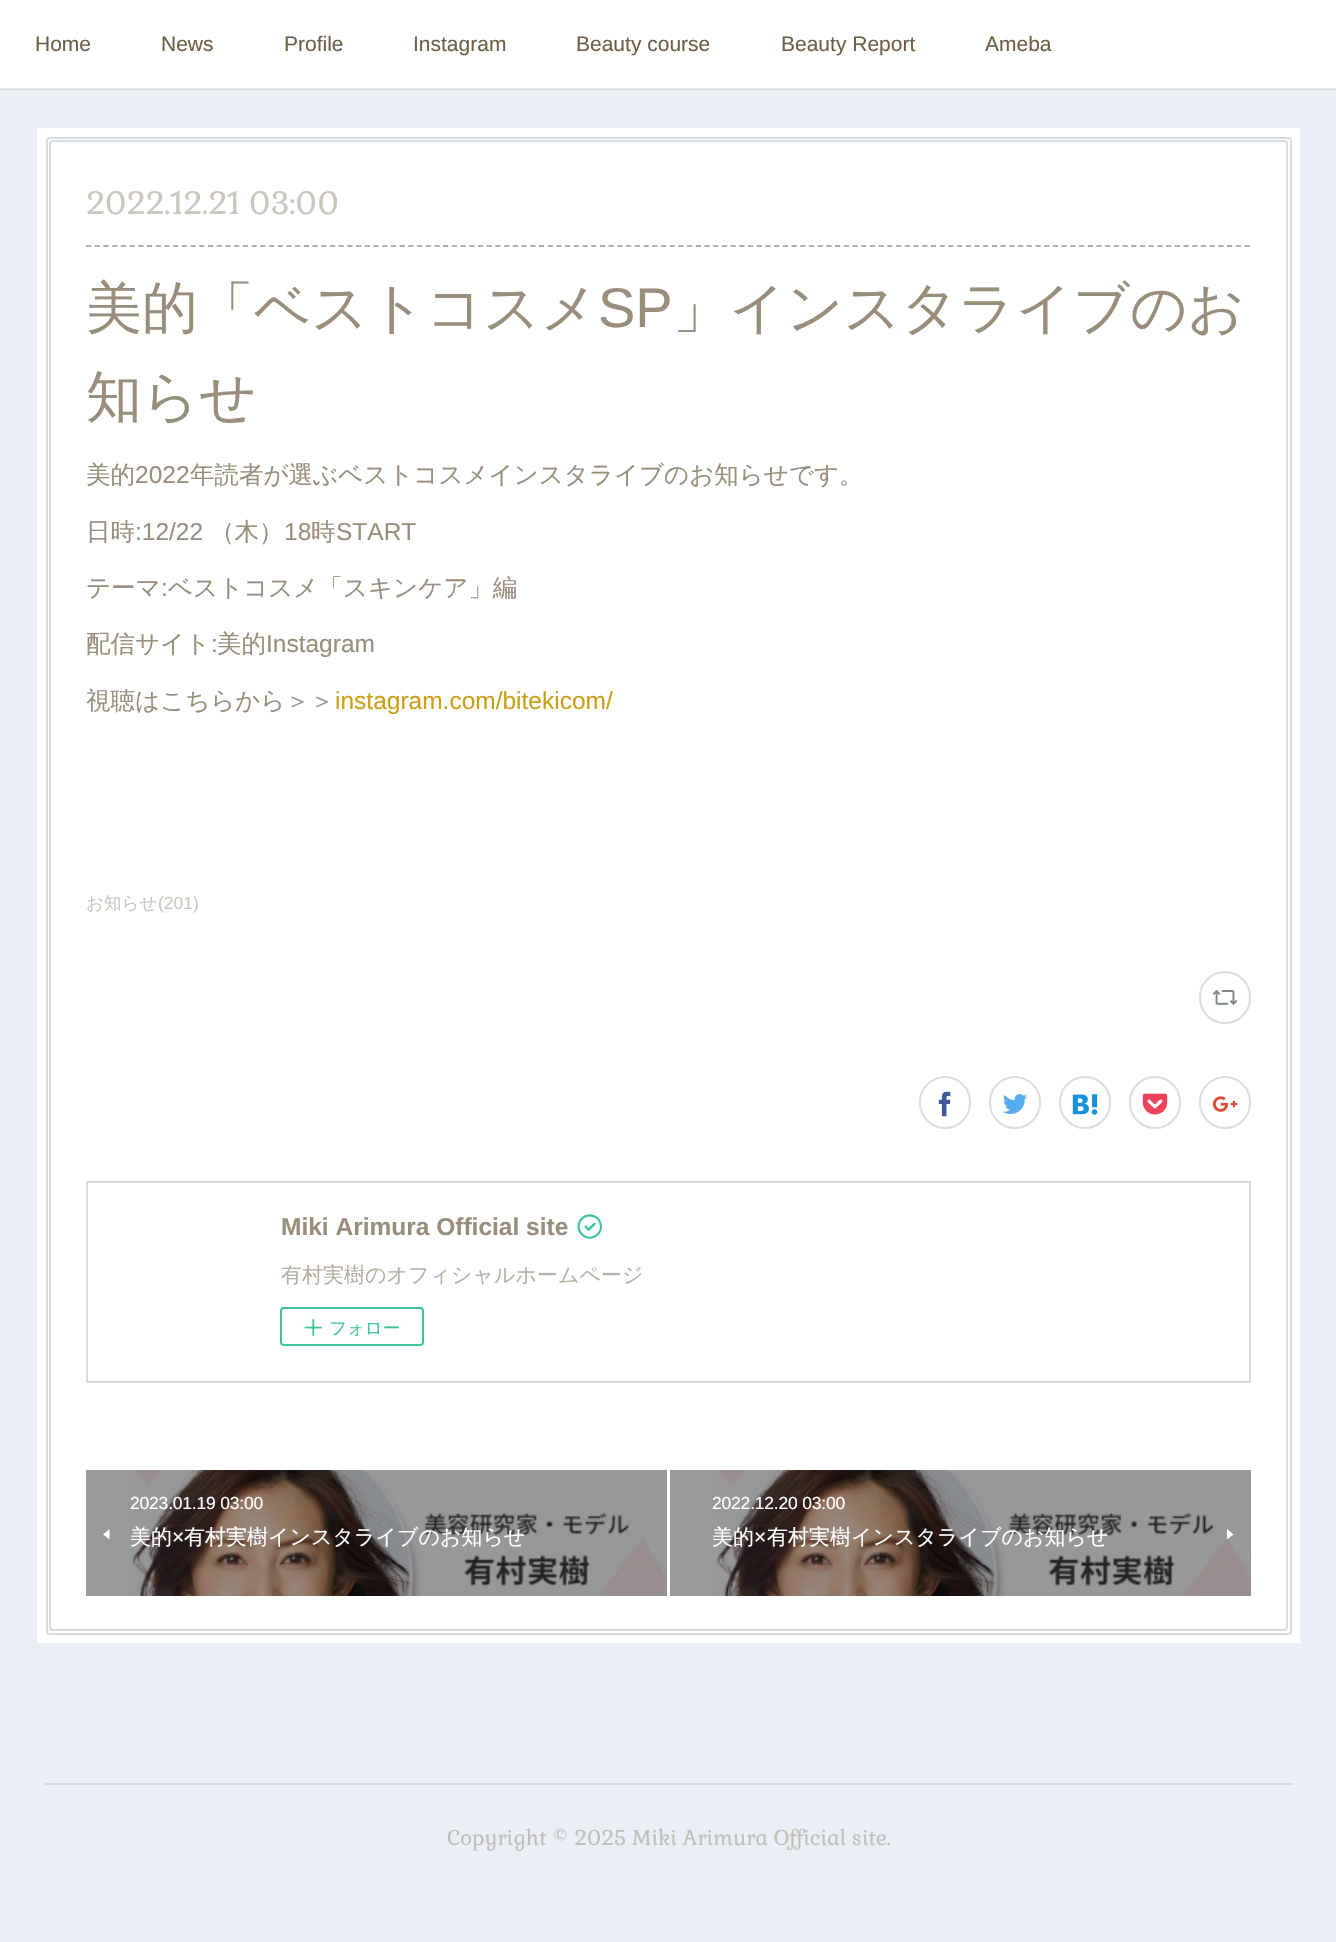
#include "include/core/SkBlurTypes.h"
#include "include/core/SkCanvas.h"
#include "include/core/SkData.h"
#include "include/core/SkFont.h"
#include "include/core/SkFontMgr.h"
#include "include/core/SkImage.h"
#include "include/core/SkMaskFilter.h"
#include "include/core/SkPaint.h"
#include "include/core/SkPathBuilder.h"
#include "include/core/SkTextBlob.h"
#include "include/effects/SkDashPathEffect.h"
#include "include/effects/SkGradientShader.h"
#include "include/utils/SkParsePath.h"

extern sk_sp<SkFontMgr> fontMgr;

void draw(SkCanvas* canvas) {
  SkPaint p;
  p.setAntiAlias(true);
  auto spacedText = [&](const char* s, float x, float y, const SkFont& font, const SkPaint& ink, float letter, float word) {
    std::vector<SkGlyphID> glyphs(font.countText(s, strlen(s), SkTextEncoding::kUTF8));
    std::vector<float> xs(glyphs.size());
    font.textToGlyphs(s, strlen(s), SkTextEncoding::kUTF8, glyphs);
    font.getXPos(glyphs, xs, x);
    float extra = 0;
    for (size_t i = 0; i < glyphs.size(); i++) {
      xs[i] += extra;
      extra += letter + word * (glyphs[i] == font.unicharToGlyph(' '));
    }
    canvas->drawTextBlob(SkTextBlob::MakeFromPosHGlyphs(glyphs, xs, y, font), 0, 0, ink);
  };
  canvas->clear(SkColorSetRGB(233, 239, 245));
  p.setColor(SkColorSetRGB(210, 215, 221));
  canvas->drawRect(SkRect::MakeLTRB(0, 89, 1336, 90), p);
  p.setColor(SK_ColorWHITE);
  canvas->drawRect(SkRect::MakeLTRB(0, 0, 1336, 88), p);
  p.setColor(SkColorSetRGB(230, 230, 230));
  canvas->drawRect(SkRect::MakeLTRB(0, 88, 1336, 89), p);
  p.setColor(SK_ColorWHITE);
  canvas->drawRect(SkRect::MakeLTRB(37, 128, 1300, 1643), p);
  p.setColor(SkColorSetRGB(153, 153, 153));
  canvas->drawRect(SkRect::MakeLTRB(670, 1470, 716, 1596), p);
  canvas->drawRect(SkRect::MakeLTRB(86, 1470, 667, 1596), p);
  p.setStyle(SkPaint::kStroke_Style);
  p.setStrokeWidth(2);
  p.setColor(SkColorSetRGB(213, 219, 224));
  canvas->drawRoundRect(SkRect::MakeLTRB(47, 138, 1291, 1634), 3, 3, p);
  canvas->drawRoundRect(SkRect::MakeLTRB(50, 141, 1287, 1630), 3, 3, p);
  p.setStrokeWidth(1.8f);
  p.setColor(SkColorSetRGB(182, 174, 162));
  p.setPathEffect(SkDashPathEffect::Make({{5.25f, 3.46f}}, 0));
  canvas->drawPath(SkPathBuilder().moveTo(86, 246).lineTo(1251, 246).detach(), p);
  p.setPathEffect(nullptr);
  p.setStrokeWidth(2);
  p.setColor(SkColorSetRGB(221, 221, 221));
  canvas->drawRoundRect(SkRect::MakeLTRB(1200, 972, 1250, 1023), 25, 25, p);
  canvas->drawImageRect(SkImages::DeferredFromEncodedData(SkData::MakeFromFileName("images/1.png")), SkRect::MakeLTRB(1212, 990, 1238, 1005), SkSamplingOptions());
  canvas->drawRoundRect(SkRect::MakeLTRB(920, 1077, 970, 1128), 25, 25, p);
  canvas->drawImageRect(SkImages::DeferredFromEncodedData(SkData::MakeFromFileName("images/2.png")), SkRect::MakeLTRB(938, 1091, 951, 1117), SkSamplingOptions());
  canvas->drawRoundRect(SkRect::MakeLTRB(990, 1077, 1040, 1128), 25, 25, p);
  canvas->drawImageRect(SkImages::DeferredFromEncodedData(SkData::MakeFromFileName("images/3.png")), SkRect::MakeLTRB(1003, 1094, 1028, 1114), SkSamplingOptions());
  canvas->drawRoundRect(SkRect::MakeLTRB(1060, 1077, 1110, 1128), 25, 25, p);
  canvas->drawImageRect(SkImages::DeferredFromEncodedData(SkData::MakeFromFileName("images/4.png")), SkRect::MakeLTRB(1072, 1094, 1098, 1115), SkSamplingOptions());
  canvas->drawRoundRect(SkRect::MakeLTRB(1130, 1077, 1180, 1128), 25, 25, p);
  canvas->drawImageRect(SkImages::DeferredFromEncodedData(SkData::MakeFromFileName("images/5.png")), SkRect::MakeLTRB(1142, 1093, 1168, 1115), SkSamplingOptions());
  canvas->drawRoundRect(SkRect::MakeLTRB(1200, 1077, 1250, 1128), 25, 25, p);
  canvas->drawImageRect(SkImages::DeferredFromEncodedData(SkData::MakeFromFileName("images/6.png")), SkRect::MakeLTRB(1212, 1096, 1238, 1112), SkSamplingOptions());
  p.setColor(SkColorSetRGB(213, 219, 224));
  canvas->drawRect(SkRect::MakeLTRB(87, 1182, 1250, 1382), p);
  canvas->drawImageRect(SkImages::DeferredFromEncodedData(SkData::MakeFromFileName("images/7.png")), SkRect::MakeLTRB(577, 1214, 602, 1239), SkSamplingOptions());
  p.setColor(SkColorSetRGB(61, 196, 157));
  canvas->drawRoundRect(SkRect::MakeLTRB(281, 1308, 423, 1345), 3, 3, p);
  canvas->drawImageRect(SkImages::DeferredFromEncodedData(SkData::MakeFromFileName("images/8.png")), SkRect::MakeLTRB(304, 1318, 322, 1337), SkSamplingOptions());
  canvas->drawImageRect(SkImages::DeferredFromEncodedData(SkData::MakeFromFileName("images/9.png")), SkRect::MakeLTRB(131, 1470, 667, 1596), SkSamplingOptions());
  p.setStyle(SkPaint::kFill_Style);
  p.setColor(SK_ColorWHITE);
  canvas->drawPath(SkPathBuilder().moveTo(109.5f, 1539.5f).lineTo(109.5f, 1529).lineTo(103, 1534.5f).close().detach(), p);
  canvas->drawImageRect(SkImages::DeferredFromEncodedData(SkData::MakeFromFileName("images/10.png")), SkRect::MakeLTRB(716, 1470, 1252, 1596), SkSamplingOptions());
  canvas->drawPath(SkPathBuilder().moveTo(1227, 1529).lineTo(1227, 1539.5f).lineTo(1233.5f, 1534.5f).close().detach(), p);
  p.setColor(SkColorSetRGB(213, 219, 224));
  canvas->drawRect(SkRect::MakeLTRB(44, 1783, 1293, 1785), p);
  SkFont font1(fontMgr->matchFamilyStyle("Liberation Sans", SkFontStyle::Normal()), 21);
  font1.setSubpixel(true);
  p.setColor(SkColorSetRGB(110, 95, 68));
  canvas->drawString("Home", 35, 51, font1, p);
  canvas->drawString("News", 161, 51, font1, p);
  canvas->drawString("Profile", 284, 51, font1, p);
  canvas->drawString("Instagram", 413, 51, font1, p);
  canvas->drawString("Beauty course", 576, 51, font1, p);
  canvas->drawString("Beauty Report", 781, 51, font1, p);
  canvas->drawString("Ameba", 985, 51, font1, p);
  SkFont font2(fontMgr->matchFamilyStyle("Gabriela", SkFontStyle::Normal()), 31.5f);
  font2.setSubpixel(true);
  p.setColor(SkColorSetRGB(204, 199, 190));
  canvas->drawString("2022.12.21 03:00", 86, 214, font2, p);
  SkFont font3(fontMgr->matchFamilyStyle("WenQuanYi Zen Hei", SkFontStyle(500, SkFontStyle::kNormal_Width, SkFontStyle::kUpright_Slant)), 56);
  font3.setSubpixel(true);
  p.setColor(SkColorSetRGB(153, 142, 124));
  canvas->drawString("美的「ベストコスメ", 86, 327, font3, p);
  SkFont font4(fontMgr->matchFamilyStyle("Liberation Sans", SkFontStyle::Normal()), 56);
  font4.setSubpixel(true);
  canvas->drawString("SP", 598, 327, font4, p);
  canvas->drawString("」インスタライブのお", 673, 327, font3, p);
  canvas->drawString("知らせ", 86, 416, font3, p);
  SkFont font5(fontMgr->matchFamilyStyle("WenQuanYi Zen Hei", SkFontStyle(500, SkFontStyle::kNormal_Width, SkFontStyle::kUpright_Slant)), 24.5f);
  font5.setSubpixel(true);
  canvas->drawString("美的", 86, 483, font5, p);
  SkFont font6(fontMgr->matchFamilyStyle("Liberation Sans", SkFontStyle::Normal()), 24.5f);
  font6.setSubpixel(true);
  canvas->drawString("2022", 135, 483, font6, p);
  canvas->drawString("年読者が選ぶベストコスメインスタライブのお知らせです。", 190, 483, font5, p);
  canvas->drawString("日時", 86, 540, font5, p);
  canvas->drawString(":12/22", 135, 540, font6, p);
  canvas->drawString("（木）", 210, 540, font5, p);
  canvas->drawString("18", 284, 540, font6, p);
  canvas->drawString("時", 311, 540, font5, p);
  canvas->drawString("START", 336, 540, font6, p);
  canvas->drawString("テーマ", 86, 596, font5, p);
  canvas->drawString(":", 161, 596, font6, p);
  canvas->drawString("ベストコスメ「スキンケア」編", 168, 596, font5, p);
  canvas->drawString("配信サイト", 86, 652, font5, p);
  canvas->drawString(":", 211, 652, font6, p);
  canvas->drawString("美的", 217, 652, font5, p);
  canvas->drawString("Instagram", 266, 652, font6, p);
  canvas->drawString("視聴はこちらから＞＞", 86, 709, font5, p);
  p.setColor(SkColorSetRGB(204, 159, 22));
  canvas->drawString("instagram.com/bitekicom/", 335, 709, font6, p);
  SkFont font7(fontMgr->matchFamilyStyle("WenQuanYi Zen Hei", SkFontStyle(500, SkFontStyle::kNormal_Width, SkFontStyle::kUpright_Slant)), 17.5f);
  font7.setSubpixel(true);
  p.setColor(SkColorSetRGB(204, 199, 190));
  canvas->drawString("お知らせ", 86, 909, font7, p);
  SkFont font8(fontMgr->matchFamilyStyle("Liberation Sans", SkFontStyle::Normal()), 17.5f);
  font8.setSubpixel(true);
  canvas->drawString("(201)", 158, 909, font8, p);
  SkFont font9(fontMgr->matchFamilyStyle("Liberation Sans", SkFontStyle::Bold()), 24.5f);
  font9.setSubpixel(true);
  p.setColor(SkColorSetRGB(153, 142, 124));
  canvas->drawString("Miki Arimura Official site", 281, 1235, font9, p);
  SkFont font10(fontMgr->matchFamilyStyle("WenQuanYi Zen Hei", SkFontStyle(500, SkFontStyle::kNormal_Width, SkFontStyle::kUpright_Slant)), 21);
  font10.setSubpixel(true);
  p.setColor(SkColorSetRGB(184, 176, 163));
  canvas->drawString("有村実樹のオフィシャルホームページ", 281, 1282, font10, p);
  p.setColor(SkColorSetRGB(61, 196, 157));
  canvas->drawString("フォロー", 329, 1334, font7, p);
  p.setColor(SK_ColorWHITE);
  spacedText("2023.01.19 03:00", 130, 1509, font8, p, -0.2f, 0);
  canvas->drawString("美的", 130, 1544, font10, p);
  canvas->drawString("×", 172, 1544, font1, p);
  canvas->drawString("有村実樹インスタライブのお知らせ", 184, 1544, font10, p);
  spacedText("2022.12.20 03:00", 712, 1509, font8, p, -0.2f, 0);
  canvas->drawString("美的", 712, 1544, font10, p);
  canvas->drawString("×", 754, 1544, font1, p);
  canvas->drawString("有村実樹インスタライブのお知らせ", 767, 1544, font10, p);
  SkFont font11(fontMgr->matchFamilyStyle("Gabriela", SkFontStyle::Normal()), 21);
  font11.setSubpixel(true);
  p.setColor(SkColorSetRGB(193, 191, 185));
  canvas->drawString("Copyright © 2025 Miki Arimura Official site.", 447, 1845, font11, p);
}
